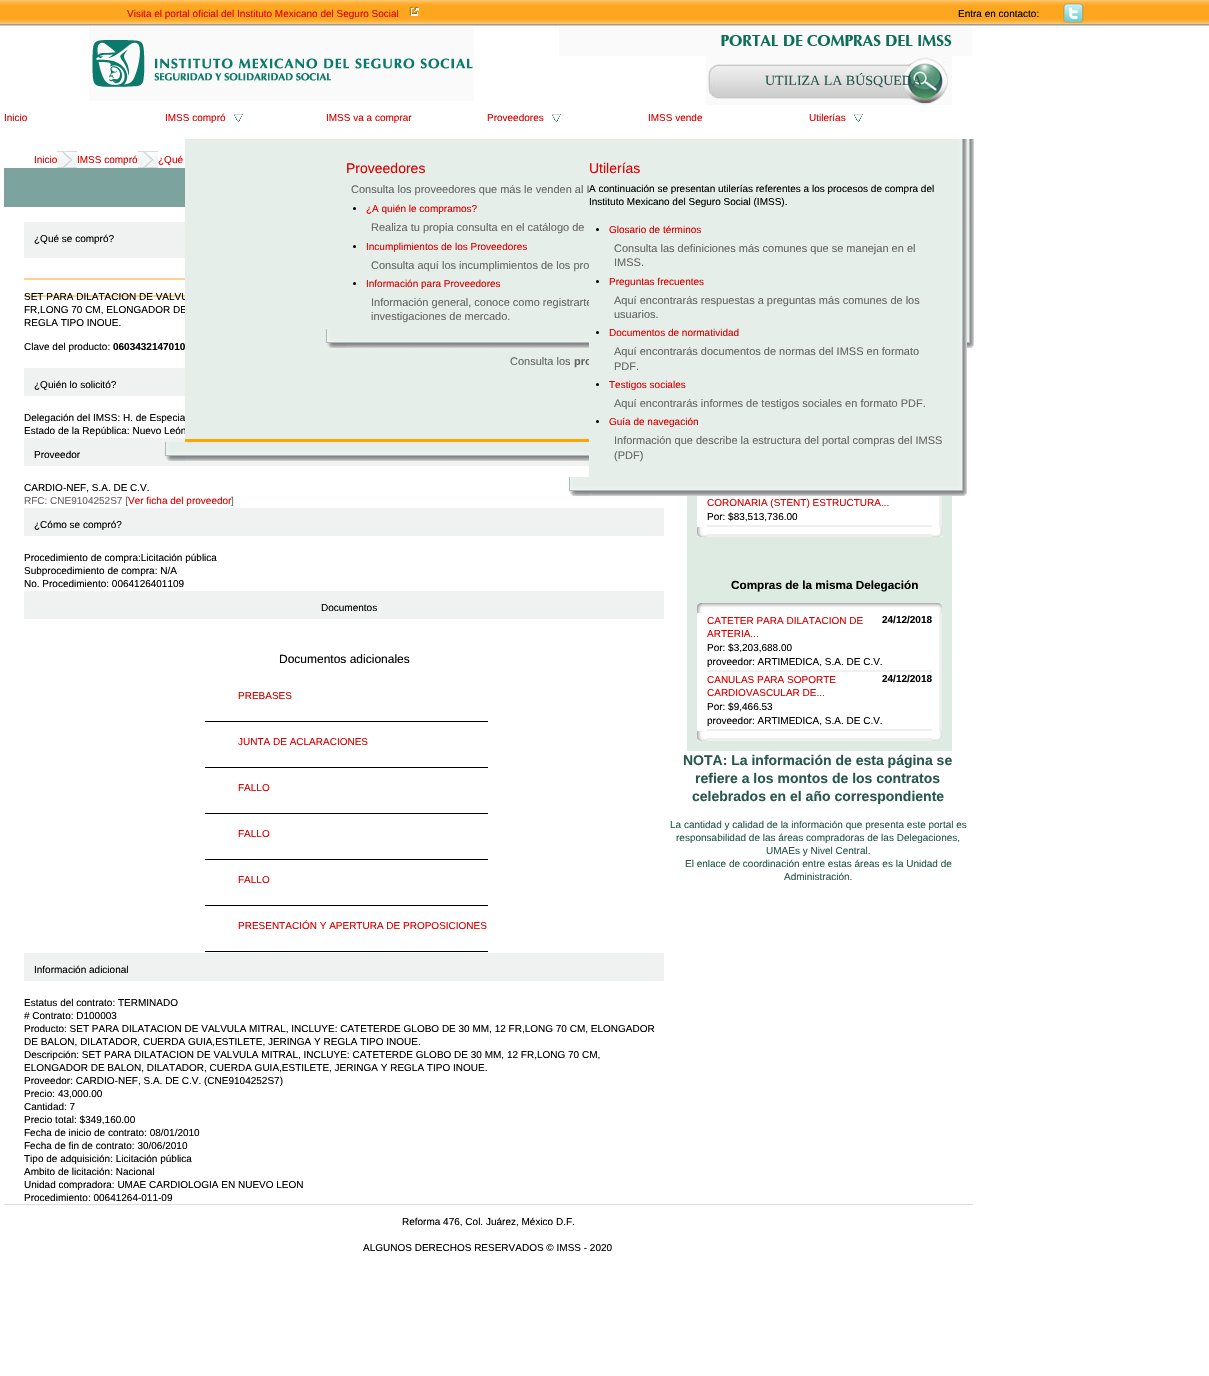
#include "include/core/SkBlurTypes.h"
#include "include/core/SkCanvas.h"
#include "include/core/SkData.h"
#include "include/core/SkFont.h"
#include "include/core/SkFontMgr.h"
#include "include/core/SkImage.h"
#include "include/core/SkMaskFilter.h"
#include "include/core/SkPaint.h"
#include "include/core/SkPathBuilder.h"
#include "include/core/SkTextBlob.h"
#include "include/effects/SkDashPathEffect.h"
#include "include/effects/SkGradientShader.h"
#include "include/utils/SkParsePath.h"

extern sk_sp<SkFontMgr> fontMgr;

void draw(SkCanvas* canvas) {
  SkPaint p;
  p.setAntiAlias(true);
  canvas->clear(SK_ColorWHITE);
  canvas->drawImageRect(SkImages::DeferredFromEncodedData(SkData::MakeFromFileName("images/1.png")), SkRect::MakeLTRB(0, 0, 1209, 26), SkSamplingOptions());
  canvas->drawImageRect(SkImages::DeferredFromEncodedData(SkData::MakeFromFileName("images/2.png")), SkRect::MakeLTRB(409, 6, 420, 17), SkSamplingOptions());
  canvas->drawImageRect(SkImages::DeferredFromEncodedData(SkData::MakeFromFileName("images/3.png")), SkRect::MakeLTRB(1063, 3, 1084, 23), SkSamplingOptions());
  canvas->drawImageRect(SkImages::DeferredFromEncodedData(SkData::MakeFromFileName("images/4.png")), SkRect::MakeLTRB(89, 26, 474, 101), SkSamplingOptions());
  canvas->drawImageRect(SkImages::DeferredFromEncodedData(SkData::MakeFromFileName("images/5.png")), SkRect::MakeLTRB(559, 26, 972, 56), SkSamplingOptions());
  canvas->drawImageRect(SkImages::DeferredFromEncodedData(SkData::MakeFromFileName("images/6.png")), SkRect::MakeLTRB(706, 56, 952, 105), SkSamplingOptions());
  canvas->drawImageRect(SkImages::DeferredFromEncodedData(SkData::MakeFromFileName("images/7.png")), SkRect::MakeLTRB(234, 114, 243, 122), SkSamplingOptions());
  canvas->drawImageRect(SkImages::DeferredFromEncodedData(SkData::MakeFromFileName("images/7.png")), SkRect::MakeLTRB(552, 114, 561, 122), SkSamplingOptions());
  canvas->drawImageRect(SkImages::DeferredFromEncodedData(SkData::MakeFromFileName("images/7.png")), SkRect::MakeLTRB(854, 114, 863, 122), SkSamplingOptions());
  canvas->drawImageRect(SkImages::DeferredFromEncodedData(SkData::MakeFromFileName("images/8.png")), SkRect::MakeLTRB(967, 211, 974, 329), SkSamplingOptions());
  canvas->drawImageRect(SkImages::DeferredFromEncodedData(SkData::MakeFromFileName("images/11.png")), SkRect::MakeLTRB(967, 329, 974, 348), SkSamplingOptions());
  canvas->drawImageRect(SkImages::DeferredFromEncodedData(SkData::MakeFromFileName("images/12.png")), SkRect::MakeLTRB(949, 139, 967, 477), SkSamplingOptions());
  canvas->drawImageRect(SkImages::DeferredFromEncodedData(SkData::MakeFromFileName("images/13.png")), SkRect::MakeLTRB(569, 477, 589, 496), SkSamplingOptions());
  canvas->drawImageRect(SkImages::DeferredFromEncodedData(SkData::MakeFromFileName("images/14.png")), SkRect::MakeLTRB(589, 477, 949, 496), SkSamplingOptions());
  canvas->drawImageRect(SkImages::DeferredFromEncodedData(SkData::MakeFromFileName("images/15.png")), SkRect::MakeLTRB(949, 477, 967, 496), SkSamplingOptions());
  canvas->drawImageRect(SkImages::DeferredFromEncodedData(SkData::MakeFromFileName("images/16.png")), SkRect::MakeLTRB(967, 139, 974, 201), SkSamplingOptions());
  canvas->drawImageRect(SkImages::DeferredFromEncodedData(SkData::MakeFromFileName("images/17.png")), SkRect::MakeLTRB(967, 201, 974, 211), SkSamplingOptions());
  p.setColor(SkColorSetRGB(240, 242, 241));
  canvas->drawRect(SkRect::MakeLTRB(24, 438, 589, 466), p);
  p.setColor(SkColorSetRGB(255, 165, 0));
  canvas->drawRect(SkRect::MakeLTRB(185, 439, 589, 442), p);
  canvas->drawImageRect(SkImages::DeferredFromEncodedData(SkData::MakeFromFileName("images/18.png")), SkRect::MakeLTRB(165, 442, 185, 461), SkSamplingOptions());
  canvas->drawImageRect(SkImages::DeferredFromEncodedData(SkData::MakeFromFileName("images/19.png")), SkRect::MakeLTRB(185, 442, 589, 461), SkSamplingOptions());
  canvas->drawImageRect(SkImages::DeferredFromEncodedData(SkData::MakeFromFileName("images/20.png")), SkRect::MakeLTRB(57, 151, 77, 168), SkSamplingOptions());
  canvas->drawImageRect(SkImages::DeferredFromEncodedData(SkData::MakeFromFileName("images/20.png")), SkRect::MakeLTRB(138, 151, 158, 168), SkSamplingOptions());
  p.setColor(SkColorSetRGB(124, 163, 158));
  canvas->drawRect(SkRect::MakeLTRB(4, 168, 185, 207), p);
  p.setColor(SkColorSetRGB(240, 242, 241));
  canvas->drawRect(SkRect::MakeLTRB(24, 222, 185, 258), p);
  p.setColor(SkColorSetRGB(254, 209, 144));
  canvas->drawRect(SkRect::MakeLTRB(24, 278, 185, 280), p);
  canvas->drawRect(SkRect::MakeLTRB(24, 295, 185, 297), p);
  p.setColor(SkColorSetRGB(240, 242, 241));
  canvas->drawRect(SkRect::MakeLTRB(24, 368, 185, 396), p);
  canvas->drawRect(SkRect::MakeLTRB(24, 508, 664, 536), p);
  canvas->drawRect(SkRect::MakeLTRB(24, 591, 664, 619), p);
  p.setColor(SK_ColorBLACK);
  canvas->drawRect(SkRect::MakeLTRB(205, 721, 488, 722), p);
  canvas->drawRect(SkRect::MakeLTRB(205, 767, 488, 768), p);
  canvas->drawRect(SkRect::MakeLTRB(205, 813, 488, 814), p);
  canvas->drawRect(SkRect::MakeLTRB(205, 859, 488, 860), p);
  canvas->drawRect(SkRect::MakeLTRB(205, 905, 488, 906), p);
  canvas->drawRect(SkRect::MakeLTRB(205, 951, 488, 952), p);
  p.setColor(SkColorSetRGB(240, 242, 241));
  canvas->drawRect(SkRect::MakeLTRB(24, 953, 664, 981), p);
  p.setColor(SkColorSetRGB(222, 235, 226));
  canvas->drawRect(SkRect::MakeLTRB(687, 496, 952, 751), p);
  p.setColor(SK_ColorWHITE);
  canvas->drawRect(SkRect::MakeLTRB(697, 496, 939, 534), p);
  p.setColor(SkColorSetRGB(239, 241, 241));
  canvas->drawRect(SkRect::MakeLTRB(707, 525, 932, 527), p);
  p.setColor(SkColorSetRGB(239, 239, 239));
  canvas->drawRect(SkRect::MakeLTRB(939, 496, 942, 527), p);
  canvas->drawImageRect(SkImages::DeferredFromEncodedData(SkData::MakeFromFileName("images/21.png")), SkRect::MakeLTRB(697, 527, 707, 537), SkSamplingOptions());
  p.setColor(SkColorSetRGB(238, 238, 238));
  canvas->drawRect(SkRect::MakeLTRB(707, 534, 932, 537), p);
  canvas->drawImageRect(SkImages::DeferredFromEncodedData(SkData::MakeFromFileName("images/22.png")), SkRect::MakeLTRB(932, 527, 942, 537), SkSamplingOptions());
  p.setColor(SK_ColorWHITE);
  canvas->drawRect(SkRect::MakeLTRB(697, 608, 939, 738), p);
  canvas->drawImageRect(SkImages::DeferredFromEncodedData(SkData::MakeFromFileName("images/23.png")), SkRect::MakeLTRB(697, 603, 707, 613), SkSamplingOptions());
  canvas->drawImageRect(SkImages::DeferredFromEncodedData(SkData::MakeFromFileName("images/24.png")), SkRect::MakeLTRB(707, 603, 932, 608), SkSamplingOptions());
  canvas->drawImageRect(SkImages::DeferredFromEncodedData(SkData::MakeFromFileName("images/25.png")), SkRect::MakeLTRB(932, 603, 942, 613), SkSamplingOptions());
  p.setColor(SkColorSetRGB(239, 241, 241));
  canvas->drawRect(SkRect::MakeLTRB(707, 670, 932, 672), p);
  p.setColor(SkColorSetRGB(239, 239, 239));
  canvas->drawRect(SkRect::MakeLTRB(939, 613, 942, 731), p);
  p.setColor(SkColorSetRGB(239, 241, 241));
  canvas->drawRect(SkRect::MakeLTRB(707, 729, 932, 731), p);
  canvas->drawImageRect(SkImages::DeferredFromEncodedData(SkData::MakeFromFileName("images/21.png")), SkRect::MakeLTRB(697, 731, 707, 741), SkSamplingOptions());
  p.setColor(SkColorSetRGB(238, 238, 238));
  canvas->drawRect(SkRect::MakeLTRB(707, 738, 932, 741), p);
  canvas->drawImageRect(SkImages::DeferredFromEncodedData(SkData::MakeFromFileName("images/22.png")), SkRect::MakeLTRB(932, 731, 942, 741), SkSamplingOptions());
  p.setColor(SkColorSetRGB(221, 221, 223));
  canvas->drawRect(SkRect::MakeLTRB(4, 1204, 973, 1205), p);
  SkFont font1(fontMgr->matchFamilyStyle("Liberation Sans", SkFontStyle::Normal()), 10);
  font1.setSubpixel(true);
  p.setColor(SkColorSetRGB(221, 0, 0));
  canvas->drawString("Visita el portal oficial del Instituto Mexicano del Seguro Social", 127, 17, font1, p);
  p.setColor(SK_ColorBLACK);
  canvas->drawString("Entra en contacto:", 958, 17, font1, p);
  SkFont font2(fontMgr->matchFamilyStyle("Liberation Serif", SkFontStyle::Normal()), 14);
  font2.setSubpixel(true);
  p.setColor(SkColorSetRGB(40, 87, 77));
  canvas->drawString("UTILIZA LA BÚSQUEDA", 765, 85, font2, p);
  p.setColor(SkColorSetRGB(221, 0, 0));
  canvas->drawString("Inicio", 4, 121, font1, p);
  canvas->drawString("IMSS compró", 165, 121, font1, p);
  canvas->drawString("IMSS va a comprar", 326, 121, font1, p);
  canvas->drawString("Proveedores", 487, 121, font1, p);
  canvas->drawString("IMSS vende", 648, 121, font1, p);
  canvas->drawString("Utilerías", 809, 121, font1, p);
  canvas->drawString("Inicio", 34, 163, font1, p);
  canvas->drawString("IMSS compró", 77, 163, font1, p);
  canvas->drawString("¿Qué", 158, 163, font1, p);
  p.setColor(SK_ColorBLACK);
  canvas->drawString("¿Qué se compró?", 34, 242, font1, p);
  canvas->drawString("SET PARA DILATACION DE VALVU", 24, 300, font1, p);
  canvas->drawString("FR,LONG 70 CM, ELONGADOR DE", 24, 313, font1, p);
  canvas->drawString("REGLA TIPO INOUE.", 24, 326, font1, p);
  canvas->drawString("Clave del producto:", 24, 350, font1, p);
  SkFont font3(fontMgr->matchFamilyStyle("Liberation Sans", SkFontStyle::Bold()), 10);
  font3.setSubpixel(true);
  canvas->drawString("0603432147010", 113, 350, font3, p);
  canvas->drawString("¿Quién lo solicitó?", 34, 388, font1, p);
  canvas->drawString("Delegación del IMSS: H. de Especia", 24, 421, font1, p);
  canvas->drawString("Estado de la República: Nuevo León", 24, 434, font1, p);
  p.setColor(SkColorSetRGB(229, 238, 233));
  canvas->drawRect(SkRect::MakeLTRB(185, 139, 589, 439), p);
  SkFont font4(fontMgr->matchFamilyStyle("Liberation Sans", SkFontStyle::Normal()), 11);
  font4.setSubpixel(true);
  p.setColor(SkColorSetRGB(102, 102, 102));
  canvas->drawString("Información general, conoce como registrarte", 371, 306, font4, p);
  SkFont font5(fontMgr->matchFamilyStyle("Liberation Sans", SkFontStyle::Bold()), 11);
  font5.setSubpixel(true);
  canvas->drawString("pro", 574, 365, font5, p);
  p.setColor(SkColorSetRGB(229, 238, 233));
  canvas->drawRect(SkRect::MakeLTRB(589, 139, 949, 477), p);
  p.setColor(SkColorSetRGB(102, 102, 102));
  canvas->drawString("(PDF)", 614, 459, font4, p);
  canvas->drawString("Información que describe la estructura del portal compras del IMSS", 614, 444, font4, p);
  p.setColor(SkColorSetRGB(221, 0, 0));
  canvas->drawString("Guía de navegación", 609, 425, font1, p);
  p.setColor(SK_ColorBLACK);
  canvas->drawCircle(597.5f, 421.5f, 1.5f, p);
  p.setColor(SkColorSetRGB(102, 102, 102));
  canvas->drawString("Aquí encontrarás informes de testigos sociales en formato PDF.", 614, 407, font4, p);
  p.setColor(SkColorSetRGB(221, 0, 0));
  canvas->drawString("Testigos sociales", 609, 388, font1, p);
  p.setColor(SK_ColorBLACK);
  canvas->drawCircle(597.5f, 384.5f, 1.5f, p);
  p.setColor(SkColorSetRGB(102, 102, 102));
  canvas->drawString("PDF.", 614, 370, font4, p);
  canvas->drawString("Aquí encontrarás documentos de normas del IMSS en formato", 614, 355, font4, p);
  p.setColor(SkColorSetRGB(221, 0, 0));
  canvas->drawString("Documentos de normatividad", 609, 336, font1, p);
  p.setColor(SK_ColorBLACK);
  canvas->drawCircle(597.5f, 332.5f, 1.5f, p);
  p.setColor(SkColorSetRGB(102, 102, 102));
  canvas->drawString("usuarios.", 614, 318, font4, p);
  canvas->drawString("Aquí encontrarás respuestas a preguntas más comunes de los", 614, 304, font4, p);
  p.setColor(SkColorSetRGB(221, 0, 0));
  canvas->drawString("Preguntas frecuentes", 609, 285, font1, p);
  p.setColor(SK_ColorBLACK);
  canvas->drawCircle(597.5f, 281.5f, 1.5f, p);
  p.setColor(SkColorSetRGB(102, 102, 102));
  canvas->drawString("IMSS.", 614, 266, font4, p);
  canvas->drawString("Consulta las definiciones más comunes que se manejan en el", 614, 252, font4, p);
  p.setColor(SkColorSetRGB(221, 0, 0));
  canvas->drawString("Glosario de términos", 609, 233, font1, p);
  p.setColor(SK_ColorBLACK);
  canvas->drawCircle(597.5f, 229.5f, 1.5f, p);
  canvas->drawString("Instituto Mexicano del Seguro Social (IMSS).", 589, 205, font1, p);
  canvas->drawString("A continuación se presentan utilerías referentes a los procesos de compra del", 589, 192, font1, p);
  SkFont font6(fontMgr->matchFamilyStyle("Liberation Sans", SkFontStyle::Normal()), 14);
  font6.setSubpixel(true);
  p.setColor(SkColorSetRGB(221, 0, 0));
  canvas->drawString("Utilerías", 589, 173, font6, p);
  p.setColor(SkColorSetRGB(102, 102, 102));
  canvas->drawString("investigaciones de mercado.", 371, 320, font4, p);
  p.setColor(SkColorSetRGB(221, 0, 0));
  canvas->drawString("Información para Proveedores", 366, 287, font1, p);
  p.setColor(SK_ColorBLACK);
  canvas->drawCircle(354.5f, 283.5f, 1.5f, p);
  p.setColor(SkColorSetRGB(102, 102, 102));
  canvas->drawString("Consulta aquí los incumplimientos de los pro", 371, 269, font4, p);
  p.setColor(SkColorSetRGB(221, 0, 0));
  canvas->drawString("Incumplimientos de los Proveedores", 366, 250, font1, p);
  p.setColor(SK_ColorBLACK);
  canvas->drawCircle(354.5f, 246.5f, 1.5f, p);
  p.setColor(SkColorSetRGB(102, 102, 102));
  canvas->drawString("Realiza tu propia consulta en el catálogo de", 371, 231, font4, p);
  p.setColor(SkColorSetRGB(221, 0, 0));
  canvas->drawString("¿A quién le compramos?", 366, 212, font1, p);
  p.setColor(SK_ColorBLACK);
  canvas->drawCircle(354.5f, 208.5f, 1.5f, p);
  p.setColor(SkColorSetRGB(102, 102, 102));
  canvas->drawString("Consulta los proveedores que más le venden al I", 351, 193, font4, p);
  p.setColor(SkColorSetRGB(221, 0, 0));
  canvas->drawString("Proveedores", 346, 173, font6, p);
  canvas->drawImageRect(SkImages::DeferredFromEncodedData(SkData::MakeFromFileName("images/10.png")), SkRect::MakeLTRB(346, 329, 589, 348), SkSamplingOptions());
  canvas->drawImageRect(SkImages::DeferredFromEncodedData(SkData::MakeFromFileName("images/9.png")), SkRect::MakeLTRB(326, 329, 346, 348), SkSamplingOptions());
  p.setColor(SkColorSetRGB(102, 102, 102));
  canvas->drawString("Consulta los", 510, 365, font4, p);
  p.setColor(SK_ColorBLACK);
  canvas->drawString("Proveedor", 34, 458, font1, p);
  canvas->drawString("CARDIO-NEF, S.A. DE C.V.", 24, 491, font1, p);
  p.setColor(SkColorSetRGB(102, 102, 102));
  canvas->drawString("RFC: CNE9104252S7 [", 24, 504, font1, p);
  p.setColor(SkColorSetRGB(221, 0, 0));
  canvas->drawString("Ver ficha del proveedor", 128, 504, font1, p);
  p.setColor(SkColorSetRGB(102, 102, 102));
  canvas->drawString("]", 231, 504, font1, p);
  p.setColor(SK_ColorBLACK);
  canvas->drawString("¿Cómo se compró?", 34, 528, font1, p);
  canvas->drawString("Procedimiento de compra:Licitación pública", 24, 561, font1, p);
  canvas->drawString("Subprocedimiento de compra: N/A", 24, 574, font1, p);
  canvas->drawString("No. Procedimiento: 0064126401109", 24, 587, font1, p);
  canvas->drawString("Documentos", 321, 611, font1, p);
  SkFont font7(fontMgr->matchFamilyStyle("Liberation Sans", SkFontStyle::Normal()), 12);
  font7.setSubpixel(true);
  canvas->drawString("Documentos adicionales", 279, 663, font7, p);
  p.setColor(SkColorSetRGB(221, 0, 0));
  canvas->drawString("PREBASES", 238, 699, font1, p);
  canvas->drawString("JUNTA DE ACLARACIONES", 238, 745, font1, p);
  canvas->drawString("FALLO", 238, 791, font1, p);
  canvas->drawString("FALLO", 238, 837, font1, p);
  canvas->drawString("FALLO", 238, 883, font1, p);
  canvas->drawString("PRESENTACIÓN Y APERTURA DE PROPOSICIONES", 238, 929, font1, p);
  p.setColor(SK_ColorBLACK);
  canvas->drawString("Información adicional", 34, 973, font1, p);
  canvas->drawString("Estatus del contrato: TERMINADO", 24, 1006, font1, p);
  canvas->drawString("# Contrato: D100003", 24, 1019, font1, p);
  canvas->drawString("Producto: SET PARA DILATACION DE VALVULA MITRAL, INCLUYE: CATETERDE GLOBO DE 30 MM, 12 FR,LONG 70 CM, ELONGADOR", 24, 1032, font1, p);
  canvas->drawString("DE BALON, DILATADOR, CUERDA GUIA,ESTILETE, JERINGA Y REGLA TIPO INOUE.", 24, 1045, font1, p);
  canvas->drawString("Descripción: SET PARA DILATACION DE VALVULA MITRAL, INCLUYE: CATETERDE GLOBO DE 30 MM, 12 FR,LONG 70 CM,", 24, 1058, font1, p);
  canvas->drawString("ELONGADOR DE BALON, DILATADOR, CUERDA GUIA,ESTILETE, JERINGA Y REGLA TIPO INOUE.", 24, 1071, font1, p);
  canvas->drawString("Proveedor: CARDIO-NEF, S.A. DE C.V. (CNE9104252S7)", 24, 1084, font1, p);
  canvas->drawString("Precio: 43,000.00", 24, 1097, font1, p);
  canvas->drawString("Cantidad: 7", 24, 1110, font1, p);
  canvas->drawString("Precio total: $349,160.00", 24, 1123, font1, p);
  canvas->drawString("Fecha de inicio de contrato: 08/01/2010", 24, 1136, font1, p);
  canvas->drawString("Fecha de fin de contrato: 30/06/2010", 24, 1149, font1, p);
  canvas->drawString("Tipo de adquisición: Licitación pública", 24, 1162, font1, p);
  canvas->drawString("Ambito de licitación: Nacional", 24, 1175, font1, p);
  canvas->drawString("Unidad compradora: UMAE CARDIOLOGIA EN NUEVO LEON", 24, 1188, font1, p);
  canvas->drawString("Procedimiento: 00641264-011-09", 24, 1201, font1, p);
  p.setColor(SkColorSetRGB(221, 0, 0));
  canvas->drawString("CORONARIA (STENT) ESTRUCTURA...", 707, 506, font1, p);
  p.setColor(SK_ColorBLACK);
  canvas->drawString("Por: $83,513,736.00", 707, 520, font1, p);
  SkFont font8(fontMgr->matchFamilyStyle("Liberation Sans", SkFontStyle::Bold()), 11.75f);
  font8.setSubpixel(true);
  canvas->drawString("Compras de la misma Delegación", 731, 589, font8, p);
  p.setColor(SkColorSetRGB(221, 0, 0));
  canvas->drawString("CATETER PARA DILATACION DE", 707, 624, font1, p);
  p.setColor(SK_ColorBLACK);
  canvas->drawString("24/12/2018", 882, 623, font3, p);
  p.setColor(SkColorSetRGB(221, 0, 0));
  canvas->drawString("ARTERIA...", 707, 637, font1, p);
  p.setColor(SK_ColorBLACK);
  canvas->drawString("Por: $3,203,688.00", 707, 651, font1, p);
  canvas->drawString("proveedor: ARTIMEDICA, S.A. DE C.V.", 707, 665, font1, p);
  p.setColor(SkColorSetRGB(221, 0, 0));
  canvas->drawString("CANULAS PARA SOPORTE", 707, 683, font1, p);
  p.setColor(SK_ColorBLACK);
  canvas->drawString("24/12/2018", 882, 682, font3, p);
  p.setColor(SkColorSetRGB(221, 0, 0));
  canvas->drawString("CARDIOVASCULAR DE...", 707, 696, font1, p);
  p.setColor(SK_ColorBLACK);
  canvas->drawString("Por: $9,466.53", 707, 710, font1, p);
  canvas->drawString("proveedor: ARTIMEDICA, S.A. DE C.V.", 707, 724, font1, p);
  SkFont font9(fontMgr->matchFamilyStyle("Liberation Sans", SkFontStyle::Bold()), 14);
  font9.setSubpixel(true);
  p.setColor(SkColorSetRGB(40, 87, 77));
  canvas->drawString("NOTA: La información de esta página se", 683, 765, font9, p);
  canvas->drawString("refiere a los montos de los contratos", 695, 783, font9, p);
  canvas->drawString("celebrados en el año correspondiente", 692, 801, font9, p);
  canvas->drawString("La cantidad y calidad de la información que presenta este portal es", 670, 828, font1, p);
  canvas->drawString("responsabilidad de las áreas compradoras de las Delegaciones,", 676, 841, font1, p);
  canvas->drawString("UMAEs y Nivel Central.", 766, 854, font1, p);
  canvas->drawString("El enlace de coordinación entre estas áreas es la Unidad de", 685, 867, font1, p);
  canvas->drawString("Administración.", 784, 880, font1, p);
  p.setColor(SK_ColorBLACK);
  canvas->drawString("Reforma 476, Col. Juárez, México D.F.", 402, 1225, font1, p);
  canvas->drawString("ALGUNOS DERECHOS RESERVADOS © IMSS - 2020", 363, 1251, font1, p);
}
